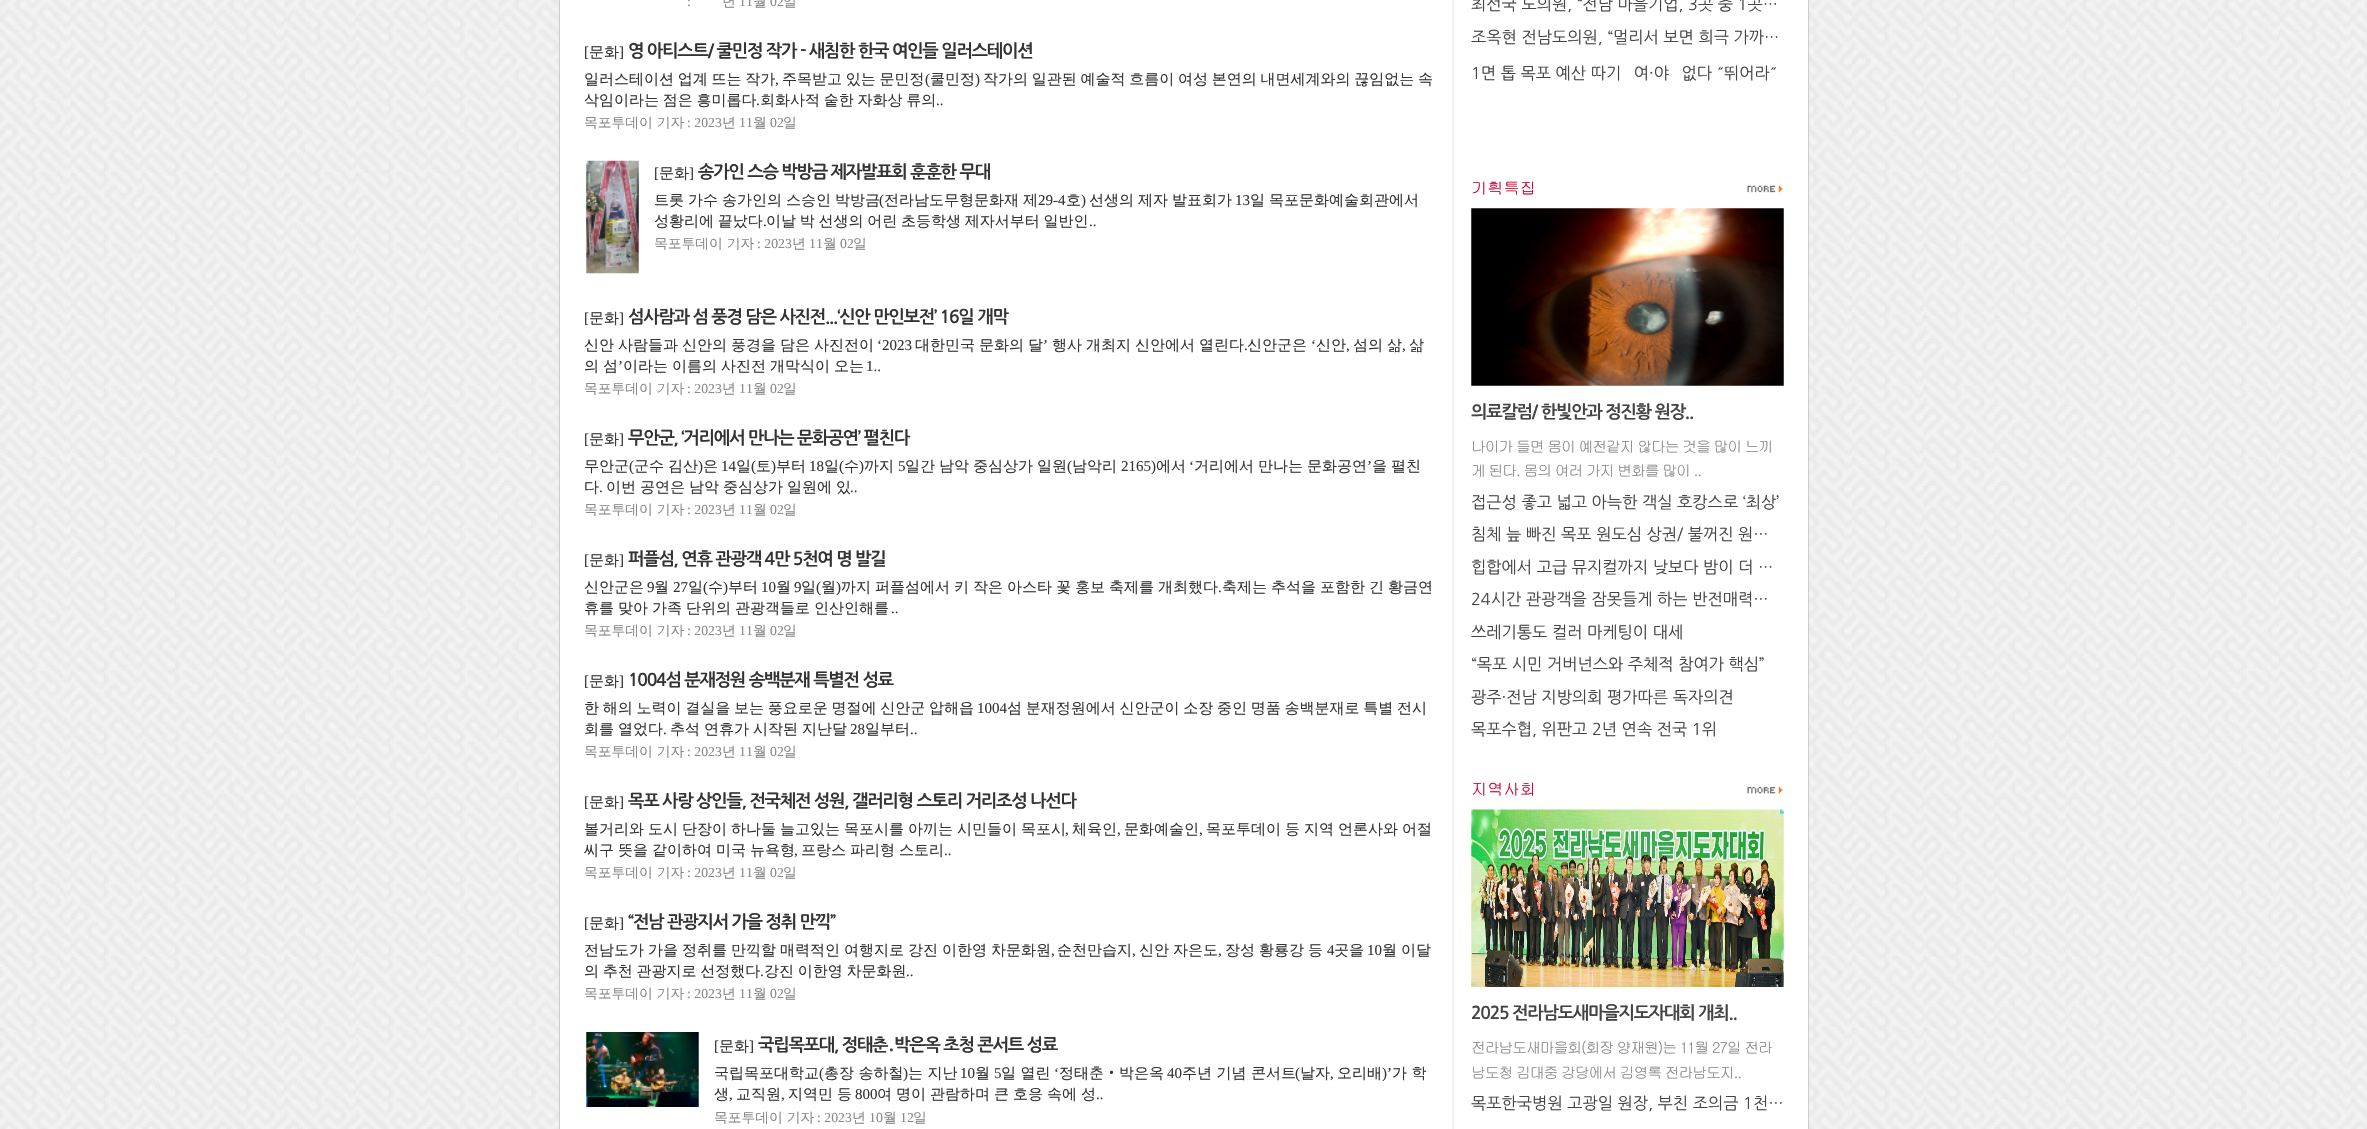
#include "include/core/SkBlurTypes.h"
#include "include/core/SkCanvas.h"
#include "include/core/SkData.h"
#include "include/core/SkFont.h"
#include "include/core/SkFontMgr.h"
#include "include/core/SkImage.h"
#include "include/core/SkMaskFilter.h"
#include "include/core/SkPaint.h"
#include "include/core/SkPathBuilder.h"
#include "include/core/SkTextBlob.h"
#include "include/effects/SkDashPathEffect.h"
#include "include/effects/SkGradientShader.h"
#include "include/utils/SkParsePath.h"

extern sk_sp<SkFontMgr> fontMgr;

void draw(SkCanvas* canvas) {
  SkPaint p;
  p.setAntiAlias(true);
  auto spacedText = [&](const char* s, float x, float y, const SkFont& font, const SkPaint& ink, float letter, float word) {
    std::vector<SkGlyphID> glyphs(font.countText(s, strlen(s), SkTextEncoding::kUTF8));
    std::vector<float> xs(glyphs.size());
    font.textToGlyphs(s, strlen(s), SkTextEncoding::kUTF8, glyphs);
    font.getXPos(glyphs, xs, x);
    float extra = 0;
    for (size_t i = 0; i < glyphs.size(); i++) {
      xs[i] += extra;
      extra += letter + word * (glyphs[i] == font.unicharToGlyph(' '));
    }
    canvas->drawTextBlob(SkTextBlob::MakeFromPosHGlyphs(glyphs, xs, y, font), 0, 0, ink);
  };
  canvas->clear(SK_ColorWHITE);
  canvas->drawImageRect(SkImages::DeferredFromEncodedData(SkData::MakeFromFileName("images/1.png")), SkRect::MakeLTRB(0, 0, 2367, 1129), SkSamplingOptions());
  p.setColor(SK_ColorWHITE);
  canvas->drawRect(SkRect::MakeLTRB(560, 0, 1808, 1129), p);
  p.setColor(SkColorSetRGB(204, 204, 204));
  canvas->drawRect(SkRect::MakeLTRB(1808, 0, 1809, 1129), p);
  canvas->drawRect(SkRect::MakeLTRB(559, 0, 560, 1129), p);
  canvas->drawImageRect(SkImages::DeferredFromEncodedData(SkData::MakeFromFileName("images/2.png")), SkRect::MakeLTRB(586, 160, 639, 274), SkSamplingOptions());
  canvas->drawImageRect(SkImages::DeferredFromEncodedData(SkData::MakeFromFileName("images/3.png")), SkRect::MakeLTRB(586, 1032, 699, 1107), SkSamplingOptions());
  canvas->drawImageRect(SkImages::DeferredFromEncodedData(SkData::MakeFromFileName("images/4.png")), SkRect::MakeLTRB(1452, 0, 1454, 1129), SkSamplingOptions());
  canvas->drawImageRect(SkImages::DeferredFromEncodedData(SkData::MakeFromFileName("images/5.png")), SkRect::MakeLTRB(1747, 185, 1783, 193), SkSamplingOptions());
  canvas->drawImageRect(SkImages::DeferredFromEncodedData(SkData::MakeFromFileName("images/6.png")), SkRect::MakeLTRB(1471, 208, 1784, 386), SkSamplingOptions());
  canvas->drawImageRect(SkImages::DeferredFromEncodedData(SkData::MakeFromFileName("images/7.png")), SkRect::MakeLTRB(1747, 786, 1783, 794), SkSamplingOptions());
  canvas->drawImageRect(SkImages::DeferredFromEncodedData(SkData::MakeFromFileName("images/8.png")), SkRect::MakeLTRB(1471, 809, 1784, 987), SkSamplingOptions());
  SkFont font1(fontMgr->matchFamilyStyle("Liberation Serif", SkFontStyle::Normal()), 13.75f);
  font1.setSubpixel(true);
  p.setColor(SkColorSetRGB(136, 136, 136));
  canvas->drawString(":", 687, 6, font1, p);
  SkFont font2(fontMgr->matchFamilyStyle("WenQuanYi Zen Hei", SkFontStyle(500, SkFontStyle::kNormal_Width, SkFontStyle::kUpright_Slant)), 13.75f);
  font2.setSubpixel(true);
  canvas->drawString("년", 722, 6, font2, p);
  canvas->drawString("11", 739, 6, font1, p);
  canvas->drawString("월", 753, 6, font2, p);
  canvas->drawString("02", 770, 6, font1, p);
  canvas->drawString("일", 783, 6, font2, p);
  SkFont font3(fontMgr->matchFamilyStyle("Liberation Serif", SkFontStyle::Normal()), 15);
  font3.setSubpixel(true);
  p.setColor(SkColorSetRGB(51, 51, 51));
  canvas->drawString("[", 584, 57, font3, p);
  SkFont font4(fontMgr->matchFamilyStyle("WenQuanYi Zen Hei", SkFontStyle(500, SkFontStyle::kNormal_Width, SkFontStyle::kUpright_Slant)), 15);
  font4.setSubpixel(true);
  canvas->drawString("문화", 589, 57, font4, p);
  canvas->drawString("]", 619, 57, font3, p);
  SkFont font5(fontMgr->matchFamilyStyle("NanumGothic", SkFontStyle::Bold()), 17.5f);
  font5.setSubpixel(true);
  spacedText("영 아티스트/ 쿨민정 작가 - 새침한 한국 여인들 일러스테이션", 628, 57, font5, p, -1.25f, 0);
  spacedText("일러스테이션 업계 뜨는 작가", 584, 84, font4, p, 0, -0.75f);
  canvas->drawString(",", 775, 84, font3, p);
  spacedText("주목받고 있는 문민정", 782, 84, font4, p, 0, -0.75f);
  canvas->drawString("(", 925, 84, font3, p);
  canvas->drawString("쿨민정", 930, 84, font4, p);
  canvas->drawString(")", 975, 84, font3, p);
  spacedText("작가의 일관된 예술적 흐름이 여성 본연의 내면세계와의 끊임없는 속", 983, 84, font4, p, 0, -0.75f);
  spacedText("삭임이라는 점은 흥미롭다", 584, 105, font4, p, 0, -0.75f);
  canvas->drawString(".", 756, 105, font3, p);
  spacedText("회화사적 숱한 자화상 류의", 760, 105, font4, p, 0, -0.75f);
  canvas->drawString("..", 936, 105, font3, p);
  p.setColor(SkColorSetRGB(136, 136, 136));
  canvas->drawString("목포투데이 기자", 584, 127, font2, p);
  canvas->drawString(": 2023", 687, 127, font1, p);
  canvas->drawString("년", 722, 127, font2, p);
  canvas->drawString("11", 739, 127, font1, p);
  canvas->drawString("월", 753, 127, font2, p);
  canvas->drawString("02", 770, 127, font1, p);
  canvas->drawString("일", 783, 127, font2, p);
  p.setColor(SkColorSetRGB(51, 51, 51));
  canvas->drawString("[", 654, 178, font3, p);
  canvas->drawString("문화", 659, 178, font4, p);
  canvas->drawString("]", 689, 178, font3, p);
  spacedText("송가인 스승 박방금 제자발표회 훈훈한 무대", 698, 178, font5, p, -1.25f, 0);
  spacedText("트롯 가수 송가인의 스승인 박방금", 654, 205, font4, p, 0, -0.5f);
  canvas->drawString("(", 879, 205, font3, p);
  spacedText("전라남도무형문화재 제", 884, 205, font4, p, 0, -0.5f);
  canvas->drawString("29-4", 1038, 205, font3, p);
  canvas->drawString("호", 1066, 205, font4, p);
  canvas->drawString(")", 1081, 205, font3, p);
  spacedText("선생의 제자 발표회가", 1089, 205, font4, p, 0, -0.5f);
  canvas->drawString("13", 1235, 205, font3, p);
  spacedText("일 목포문화예술회관에서", 1250, 205, font4, p, 0, -0.5f);
  spacedText("성황리에 끝났다", 654, 226, font4, p, 0, -0.75f);
  canvas->drawString(".", 763, 226, font3, p);
  spacedText("이날 박 선생의 어린 초등학생 제자서부터 일반인", 766, 226, font4, p, 0, -0.75f);
  canvas->drawString("..", 1089, 226, font3, p);
  p.setColor(SkColorSetRGB(136, 136, 136));
  canvas->drawString("목포투데이 기자", 654, 248, font2, p);
  canvas->drawString(": 2023", 757, 248, font1, p);
  canvas->drawString("년", 792, 248, font2, p);
  canvas->drawString("11", 809, 248, font1, p);
  canvas->drawString("월", 823, 248, font2, p);
  canvas->drawString("02", 840, 248, font1, p);
  canvas->drawString("일", 853, 248, font2, p);
  p.setColor(SkColorSetRGB(51, 51, 51));
  canvas->drawString("[", 584, 323, font3, p);
  canvas->drawString("문화", 589, 323, font4, p);
  canvas->drawString("]", 619, 323, font3, p);
  spacedText("섬사람과 섬 풍경 담은 사진전...‘신안 만인보전’ 16일 개막", 628, 323, font5, p, -1.25f, 0);
  spacedText("신안 사람들과 신안의 풍경을 담은 사진전이", 584, 350, font4, p, 0, -0.5f);
  canvas->drawString("‘2023", 877, 350, font3, p);
  spacedText("대한민국 문화의 달", 915, 350, font4, p, 0, -0.5f);
  canvas->drawString("’", 1043, 350, font3, p);
  spacedText("행사 개최지 신안에서 열린다", 1052, 350, font4, p, 0, -0.5f);
  canvas->drawString("신안군은", 1247, 350, font4, p);
  canvas->drawString("‘", 1311, 350, font3, p);
  canvas->drawString("신안", 1316, 350, font4, p);
  spacedText("섬의 삶", 1353, 350, font4, p, 0, -0.5f);
  canvas->drawString("삶", 1409, 350, font4, p);
  canvas->drawString(".", 1244, 350, font3, p);
  canvas->drawString(",", 1346, 350, font3, p);
  canvas->drawString(",", 1402, 350, font3, p);
  spacedText("의 섬", 584, 371, font4, p, 0, -0.5f);
  canvas->drawString("’", 618, 371, font3, p);
  spacedText("이라는 이름의 사진전 개막식이 오는", 623, 371, font4, p, 0, -0.5f);
  canvas->drawString("1..", 866, 371, font3, p);
  p.setColor(SkColorSetRGB(136, 136, 136));
  canvas->drawString("목포투데이 기자", 584, 393, font2, p);
  canvas->drawString(": 2023", 687, 393, font1, p);
  canvas->drawString("년", 722, 393, font2, p);
  canvas->drawString("11", 739, 393, font1, p);
  canvas->drawString("월", 753, 393, font2, p);
  canvas->drawString("02", 770, 393, font1, p);
  canvas->drawString("일", 783, 393, font2, p);
  p.setColor(SkColorSetRGB(51, 51, 51));
  canvas->drawString("[", 584, 444, font3, p);
  canvas->drawString("문화", 589, 444, font4, p);
  canvas->drawString("]", 619, 444, font3, p);
  spacedText("무안군, ‘거리에서 만나는 문화공연’ 펼친다", 628, 444, font5, p, -1.25f, 0);
  canvas->drawString("무안군", 584, 471, font4, p);
  canvas->drawString("(", 629, 471, font3, p);
  spacedText("군수 김산", 634, 471, font4, p, 0, -0.5f);
  canvas->drawString(")", 698, 471, font3, p);
  canvas->drawString("은", 703, 471, font4, p);
  canvas->drawString("14", 721, 471, font3, p);
  canvas->drawString("일", 736, 471, font4, p);
  canvas->drawString("(", 751, 471, font3, p);
  canvas->drawString("토", 756, 471, font4, p);
  canvas->drawString(")", 771, 471, font3, p);
  canvas->drawString("부터", 776, 471, font4, p);
  canvas->drawString("18", 809, 471, font3, p);
  canvas->drawString("일", 824, 471, font4, p);
  canvas->drawString("(", 839, 471, font3, p);
  canvas->drawString("수", 844, 471, font4, p);
  canvas->drawString(")", 859, 471, font3, p);
  canvas->drawString("까지", 864, 471, font4, p);
  canvas->drawString("5", 898, 471, font3, p);
  spacedText("일간 남악 중심상가 일원", 905, 471, font4, p, 0, -0.5f);
  canvas->drawString("(", 1067, 471, font3, p);
  canvas->drawString("남악리", 1072, 471, font4, p);
  canvas->drawString("2165)", 1121, 471, font3, p);
  canvas->drawString("에서", 1156, 471, font4, p);
  canvas->drawString("‘", 1189, 471, font3, p);
  spacedText("거리에서 만나는 문화공연", 1194, 471, font4, p, 0, -0.5f);
  canvas->drawString("’", 1367, 471, font3, p);
  spacedText("을 펼친", 1372, 471, font4, p, 0, -0.5f);
  canvas->drawString("다", 584, 492, font4, p);
  canvas->drawString(".", 599, 492, font3, p);
  spacedText("이번 공연은 남악 중심상가 일원에 있", 606, 492, font4, p, 0, -0.5f);
  canvas->drawString("..", 850, 492, font3, p);
  p.setColor(SkColorSetRGB(136, 136, 136));
  canvas->drawString("목포투데이 기자", 584, 514, font2, p);
  canvas->drawString(": 2023", 687, 514, font1, p);
  canvas->drawString("년", 722, 514, font2, p);
  canvas->drawString("11", 739, 514, font1, p);
  canvas->drawString("월", 753, 514, font2, p);
  canvas->drawString("02", 770, 514, font1, p);
  canvas->drawString("일", 783, 514, font2, p);
  p.setColor(SkColorSetRGB(51, 51, 51));
  canvas->drawString("[", 584, 565, font3, p);
  canvas->drawString("문화", 589, 565, font4, p);
  canvas->drawString("]", 619, 565, font3, p);
  spacedText("퍼플섬, 연휴 관광객 4만 5천여 명 발길", 628, 565, font5, p, -1.25f, 0);
  canvas->drawString("신안군은", 584, 592, font4, p);
  canvas->drawString("9", 647, 592, font3, p);
  canvas->drawString("월", 654, 592, font4, p);
  canvas->drawString("27", 673, 592, font3, p);
  canvas->drawString("일", 688, 592, font4, p);
  canvas->drawString("(", 703, 592, font3, p);
  canvas->drawString("수", 708, 592, font4, p);
  canvas->drawString(")", 723, 592, font3, p);
  canvas->drawString("부터", 728, 592, font4, p);
  canvas->drawString("10", 761, 592, font3, p);
  canvas->drawString("월", 776, 592, font4, p);
  canvas->drawString("9", 794, 592, font3, p);
  canvas->drawString("일", 801, 592, font4, p);
  canvas->drawString("(", 816, 592, font3, p);
  canvas->drawString("월", 821, 592, font4, p);
  canvas->drawString(")", 836, 592, font3, p);
  spacedText("까지 퍼플섬에서 키 작은 아스타 꽃 홍보 축제를 개최했다", 841, 592, font4, p, 0, -0.5f);
  canvas->drawString(".", 1218, 592, font3, p);
  spacedText("축제는 추석을 포함한 긴 황금연", 1222, 592, font4, p, 0, -0.5f);
  spacedText("휴를 맞아 가족 단위의 관광객들로 인산인해를", 584, 613, font4, p, 0, -0.5f);
  canvas->drawString("..", 891, 613, font3, p);
  p.setColor(SkColorSetRGB(136, 136, 136));
  canvas->drawString("목포투데이 기자", 584, 635, font2, p);
  canvas->drawString(": 2023", 687, 635, font1, p);
  canvas->drawString("년", 722, 635, font2, p);
  canvas->drawString("11", 739, 635, font1, p);
  canvas->drawString("월", 753, 635, font2, p);
  canvas->drawString("02", 770, 635, font1, p);
  canvas->drawString("일", 783, 635, font2, p);
  p.setColor(SkColorSetRGB(51, 51, 51));
  canvas->drawString("[", 584, 686, font3, p);
  canvas->drawString("문화", 589, 686, font4, p);
  canvas->drawString("]", 619, 686, font3, p);
  spacedText("1004섬 분재정원 송백분재 특별전 성료", 628, 686, font5, p, -1.25f, 0);
  spacedText("한 해의 노력이 결실을 보는 풍요로운 명절에 신안군 압해읍", 584, 713, font4, p, 0, -0.75f);
  canvas->drawString("1004", 977, 713, font3, p);
  spacedText("섬 분재정원에서 신안군이 소장 중인 명품 송백분재로 특별 전시", 1007, 713, font4, p, 0, -0.75f);
  spacedText("회를 열었다", 584, 734, font4, p, 0, -0.5f);
  canvas->drawString(".", 663, 734, font3, p);
  spacedText("추석 연휴가 시작된 지난달", 670, 734, font4, p, 0, -0.5f);
  canvas->drawString("28", 850, 734, font3, p);
  canvas->drawString("일부터", 865, 734, font4, p);
  canvas->drawString("..", 910, 734, font3, p);
  p.setColor(SkColorSetRGB(136, 136, 136));
  canvas->drawString("목포투데이 기자", 584, 756, font2, p);
  canvas->drawString(": 2023", 687, 756, font1, p);
  canvas->drawString("년", 722, 756, font2, p);
  canvas->drawString("11", 739, 756, font1, p);
  canvas->drawString("월", 753, 756, font2, p);
  canvas->drawString("02", 770, 756, font1, p);
  canvas->drawString("일", 783, 756, font2, p);
  p.setColor(SkColorSetRGB(51, 51, 51));
  canvas->drawString("[", 584, 807, font3, p);
  canvas->drawString("문화", 589, 807, font4, p);
  canvas->drawString("]", 619, 807, font3, p);
  spacedText("목포 사랑 상인들, 전국체전 성원, 갤러리형 스토리 거리조성 나선다", 628, 807, font5, p, -1.25f, 0);
  spacedText("볼거리와 도시 단장이 하나둘 늘고있는 목포시를 아끼는 시민들이 목포시", 584, 834, font4, p, 0, -0.5f);
  canvas->drawString(",", 1065, 834, font3, p);
  canvas->drawString("체육인", 1072, 834, font4, p);
  canvas->drawString(",", 1117, 834, font3, p);
  canvas->drawString("문화예술인", 1124, 834, font4, p);
  canvas->drawString(",", 1199, 834, font3, p);
  spacedText("목포투데이 등 지역 언론사와 어절", 1206, 834, font4, p, 0, -0.5f);
  spacedText("씨구 뜻을 같이하여 미국 뉴욕형", 584, 855, font4, p, 0, -0.5f);
  canvas->drawString(",", 794, 855, font3, p);
  spacedText("프랑스 파리형 스토리", 801, 855, font4, p, 0, -0.5f);
  canvas->drawString("..", 944, 855, font3, p);
  p.setColor(SkColorSetRGB(136, 136, 136));
  canvas->drawString("목포투데이 기자", 584, 877, font2, p);
  canvas->drawString(": 2023", 687, 877, font1, p);
  canvas->drawString("년", 722, 877, font2, p);
  canvas->drawString("11", 739, 877, font1, p);
  canvas->drawString("월", 753, 877, font2, p);
  canvas->drawString("02", 770, 877, font1, p);
  canvas->drawString("일", 783, 877, font2, p);
  p.setColor(SkColorSetRGB(51, 51, 51));
  canvas->drawString("[", 584, 928, font3, p);
  canvas->drawString("문화", 589, 928, font4, p);
  canvas->drawString("]", 619, 928, font3, p);
  spacedText("“전남 관광지서 가을 정취 만끽”", 628, 928, font5, p, -1.25f, 0);
  spacedText("전남도가 가을 정취를 만끽할 매력적인 여행지로 강진 이한영 차문화원", 584, 955, font4, p, 0, -0.5f);
  canvas->drawString(",", 1051, 955, font3, p);
  canvas->drawString("순천만습지", 1057, 955, font4, p);
  canvas->drawString(",", 1132, 955, font3, p);
  spacedText("신안 자은도", 1139, 955, font4, p, 0, -0.5f);
  canvas->drawString(",", 1218, 955, font3, p);
  spacedText("장성 황룡강 등", 1225, 955, font4, p, 0, -0.5f);
  canvas->drawString("4", 1327, 955, font3, p);
  canvas->drawString("곳을", 1334, 955, font4, p);
  canvas->drawString("10", 1367, 955, font3, p);
  spacedText("월 이달", 1382, 955, font4, p, 0, -0.5f);
  spacedText("의 추천 관광지로 선정했다", 584, 976, font4, p, 0, -0.75f);
  canvas->drawString(".", 760, 976, font3, p);
  spacedText("강진 이한영 차문화원", 764, 976, font4, p, 0, -0.75f);
  canvas->drawString("..", 906, 976, font3, p);
  p.setColor(SkColorSetRGB(136, 136, 136));
  canvas->drawString("목포투데이 기자", 584, 998, font2, p);
  canvas->drawString(": 2023", 687, 998, font1, p);
  canvas->drawString("년", 722, 998, font2, p);
  canvas->drawString("11", 739, 998, font1, p);
  canvas->drawString("월", 753, 998, font2, p);
  canvas->drawString("02", 770, 998, font1, p);
  canvas->drawString("일", 783, 998, font2, p);
  p.setColor(SkColorSetRGB(51, 51, 51));
  canvas->drawString("[", 714, 1051, font3, p);
  canvas->drawString("문화", 719, 1051, font4, p);
  canvas->drawString("]", 749, 1051, font3, p);
  spacedText("국립목포대, 정태춘", 758, 1051, font5, p, -1.25f, 0);
  SkFont font6(fontMgr->matchFamilyStyle("Noto Sans", SkFontStyle(600, SkFontStyle::kNormal_Width, SkFontStyle::kUpright_Slant)), 17.5f);
  font6.setSubpixel(true);
  spacedText("․", 887, 1051, font6, p, -1.25f, 0);
  spacedText("박은옥 초청 콘서트 성료", 894, 1051, font5, p, -1.25f, 0);
  canvas->drawString("국립목포대학교", 714, 1078, font4, p);
  canvas->drawString("(", 819, 1078, font3, p);
  canvas->drawString("총장 송하철", 824, 1078, font4, p);
  canvas->drawString(")", 903, 1078, font3, p);
  canvas->drawString("는 지난", 908, 1078, font4, p);
  canvas->drawString("10", 960, 1078, font3, p);
  canvas->drawString("월", 975, 1078, font4, p);
  canvas->drawString("5", 994, 1078, font3, p);
  canvas->drawString("일 열린", 1001, 1078, font4, p);
  canvas->drawString("‘", 1054, 1078, font3, p);
  canvas->drawString("정태춘", 1059, 1078, font4, p);
  SkFont font7(fontMgr->matchFamilyStyle("Noto Sans CJK KR", SkFontStyle::Normal()), 15);
  font7.setSubpixel(true);
  canvas->drawString("‧", 1104, 1078, font7, p);
  canvas->drawString("박은옥", 1119, 1078, font4, p);
  canvas->drawString("40", 1167, 1078, font3, p);
  canvas->drawString("주년 기념 콘서트", 1182, 1078, font4, p);
  canvas->drawString("(", 1295, 1078, font3, p);
  canvas->drawString("날자", 1300, 1078, font4, p);
  canvas->drawString("오리배", 1337, 1078, font4, p);
  canvas->drawString(")’", 1382, 1078, font3, p);
  canvas->drawString("가 학", 1392, 1078, font4, p);
  canvas->drawString(",", 1330, 1078, font3, p);
  canvas->drawString("생", 714, 1099, font4, p);
  canvas->drawString(",", 729, 1099, font3, p);
  canvas->drawString("교직원", 736, 1099, font4, p);
  canvas->drawString(",", 781, 1099, font3, p);
  spacedText("지역민 등", 788, 1099, font4, p, 0, -0.5f);
  canvas->drawString("800", 855, 1099, font3, p);
  spacedText("여 명이 관람하며 큰 호응 속에 성", 877, 1099, font4, p, 0, -0.5f);
  canvas->drawString("..", 1096, 1099, font3, p);
  p.setColor(SkColorSetRGB(136, 136, 136));
  canvas->drawString("목포투데이 기자", 714, 1122, font2, p);
  canvas->drawString(": 2023", 817, 1122, font1, p);
  canvas->drawString("년", 852, 1122, font2, p);
  canvas->drawString("10", 869, 1122, font1, p);
  canvas->drawString("월", 883, 1122, font2, p);
  canvas->drawString("12", 900, 1122, font1, p);
  canvas->drawString("일", 913, 1122, font2, p);
  SkFont font8(fontMgr->matchFamilyStyle("NanumGothic", SkFontStyle::Normal()), 16.25f);
  font8.setSubpixel(true);
  p.setColor(SkColorSetRGB(68, 68, 68));
  canvas->drawString("최선국 도의원, “전남 마을기업, 3곳 중 1곳…", 1471, 10, font8, p);
  canvas->drawString("조옥현 전남도의원, “멀리서 보면 희극 가까…", 1471, 43, font8, p);
  canvas->drawString("1면 톱 목포 예산 따기 `여·야` 없다", 1471, 79, font8, p);
  SkFont font9(fontMgr->matchFamilyStyle("Gulim", SkFontStyle::Normal()), 16.25f);
  font9.setSubpixel(true);
  canvas->drawString("˝", 1717, 79, font9, p);
  canvas->drawString("뛰어라", 1724, 79, font8, p);
  canvas->drawString("˝", 1770, 79, font9, p);
  p.setColor(SkColorSetRGB(204, 0, 51));
  canvas->drawString("기흭특집", 1471, 194, font9, p);
  p.setColor(SkColorSetRGB(68, 68, 68));
  spacedText("의료칼럼/ 한빛안과 정진황 원장..", 1471, 418, font5, p, -1.25f, 0);
  SkFont font10(fontMgr->matchFamilyStyle("Gulim", SkFontStyle::Normal()), 15);
  font10.setSubpixel(true);
  p.setColor(SkColorSetRGB(136, 136, 136));
  spacedText("나이가 들면 몸이 예전같지 않다는 것을 많이 느끼", 1471, 452, font10, p, -1.25f, 0);
  spacedText("게 된다. 몸의 여러 가지 변화를 많이 ..", 1471, 476, font10, p, -1.25f, 0);
  p.setColor(SkColorSetRGB(68, 68, 68));
  canvas->drawString("접근성 좋고 넓고 아늑한 객실 호캉스로 ‘최상’", 1471, 508, font8, p);
  canvas->drawString("침체 늪 빠진 목포 원도심 상권/ 불꺼진 원…", 1471, 540, font8, p);
  canvas->drawString("힙합에서 고급 뮤지컬까지 낮보다 밤이 더 …", 1471, 573, font8, p);
  canvas->drawString("24시간 관광객을 잠못들게 하는 반전매력…", 1471, 605, font8, p);
  canvas->drawString("쓰레기통도 컬러 마케팅이 대세", 1471, 638, font8, p);
  canvas->drawString("“목포 시민 거버넌스와 주체적 참여가 핵심”", 1471, 670, font8, p);
  canvas->drawString("광주·전남 지방의회 평가따른 독자의견", 1471, 703, font8, p);
  canvas->drawString("목포수협, 위판고 2년 연속 전국 1위", 1471, 735, font8, p);
  p.setColor(SkColorSetRGB(204, 0, 51));
  canvas->drawString("지역사회", 1471, 795, font9, p);
  p.setColor(SkColorSetRGB(68, 68, 68));
  spacedText("2025 전라남도새마을지도자대회 개최..", 1471, 1019, font5, p, -1.25f, 0);
  p.setColor(SkColorSetRGB(136, 136, 136));
  spacedText("전라남도새마을회(회장 양재원)는 11월 27일 전라", 1471, 1053, font10, p, -1.25f, 0);
  spacedText("남도청 김대중 강당에서 김영록 전라남도지..", 1471, 1078, font10, p, -1.25f, 0);
  p.setColor(SkColorSetRGB(68, 68, 68));
  canvas->drawString("목포한국병원 고광일 원장, 부친 조의금 1천…", 1471, 1109, font8, p);
}
